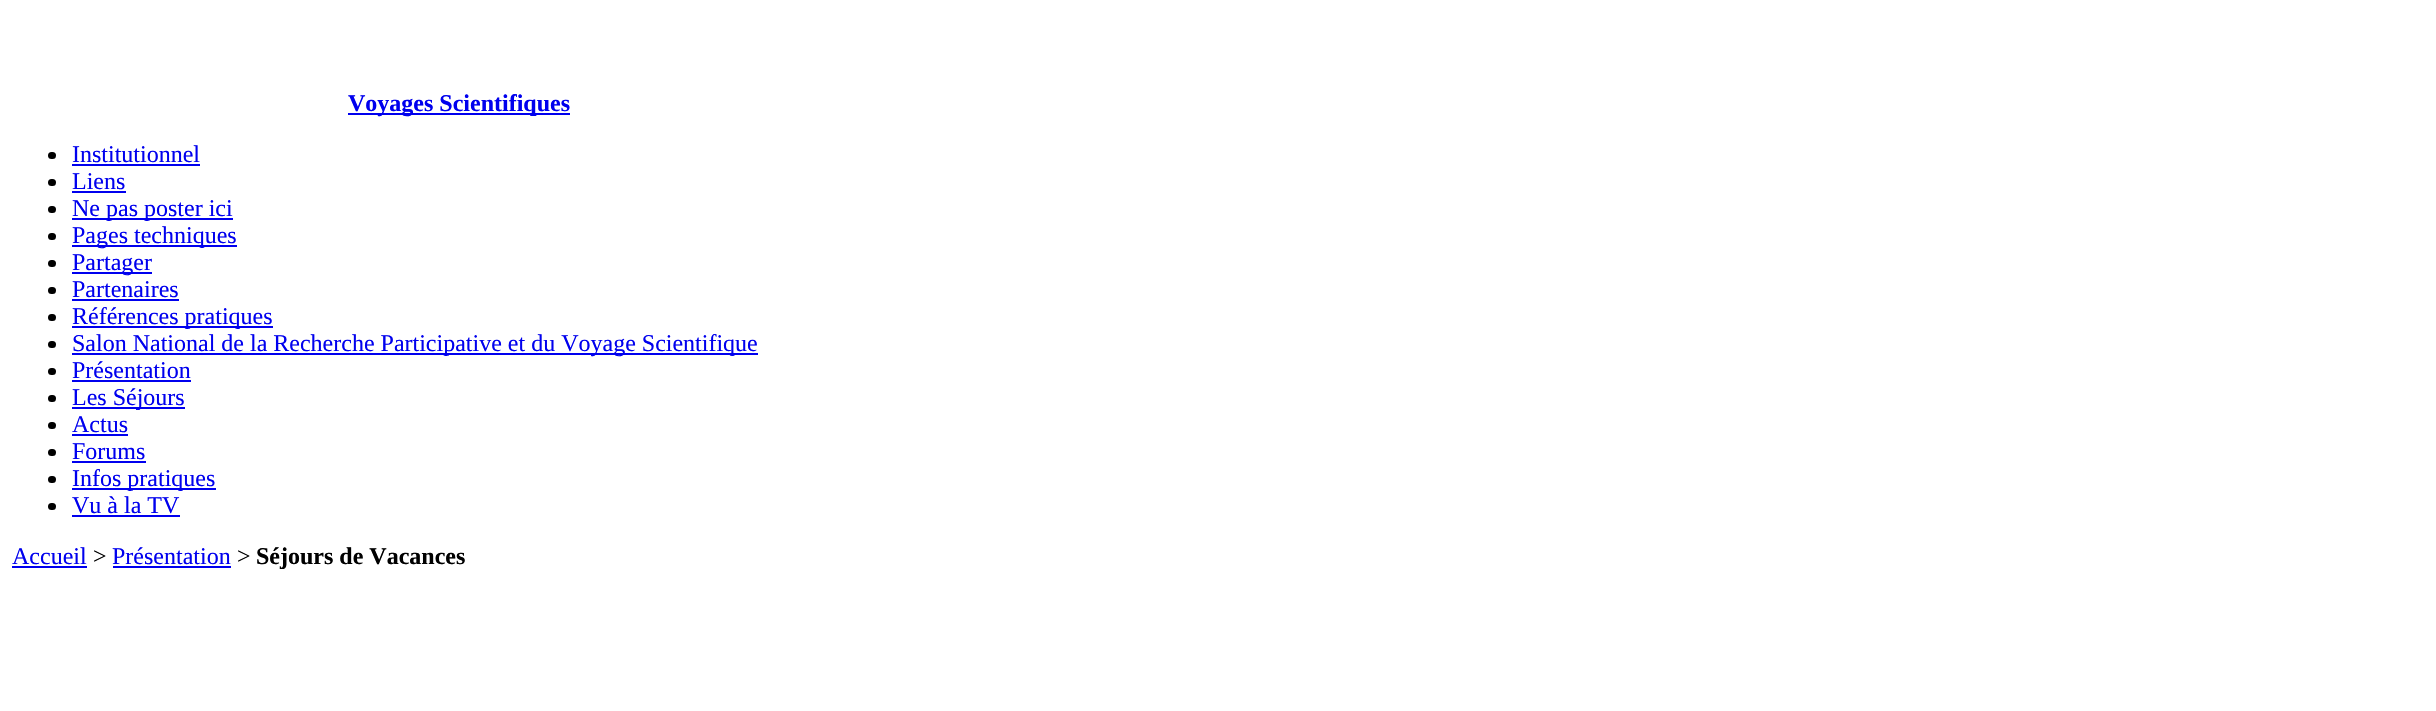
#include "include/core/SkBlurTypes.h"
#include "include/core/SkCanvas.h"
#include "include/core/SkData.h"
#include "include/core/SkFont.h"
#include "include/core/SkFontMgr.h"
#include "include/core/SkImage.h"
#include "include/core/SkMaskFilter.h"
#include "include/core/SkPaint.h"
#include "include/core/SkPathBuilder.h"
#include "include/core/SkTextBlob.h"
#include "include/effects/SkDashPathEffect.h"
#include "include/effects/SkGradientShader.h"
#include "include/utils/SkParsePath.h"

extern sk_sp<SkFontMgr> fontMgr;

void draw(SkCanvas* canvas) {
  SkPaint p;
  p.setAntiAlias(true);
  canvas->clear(SK_ColorWHITE);
  p.setColor(SkColorSetRGB(0, 0, 238));
  canvas->drawRect(SkRect::MakeLTRB(348, 113, 570, 115), p);
  p.setColor(SK_ColorBLACK);
  canvas->drawRoundRect(SkRect::MakeLTRB(48, 152, 56, 159), 3.5f, 3.5f, p);
  p.setColor(SkColorSetRGB(0, 0, 238));
  canvas->drawRect(SkRect::MakeLTRB(72, 164, 200, 166), p);
  p.setColor(SK_ColorBLACK);
  canvas->drawRoundRect(SkRect::MakeLTRB(48, 179, 56, 186), 3.5f, 3.5f, p);
  p.setColor(SkColorSetRGB(0, 0, 238));
  canvas->drawRect(SkRect::MakeLTRB(72, 191, 126, 193), p);
  p.setColor(SK_ColorBLACK);
  canvas->drawRoundRect(SkRect::MakeLTRB(48, 206, 56, 213), 3.5f, 3.5f, p);
  p.setColor(SkColorSetRGB(0, 0, 238));
  canvas->drawRect(SkRect::MakeLTRB(72, 218, 233, 220), p);
  p.setColor(SK_ColorBLACK);
  canvas->drawRoundRect(SkRect::MakeLTRB(48, 233, 56, 240), 3.5f, 3.5f, p);
  p.setColor(SkColorSetRGB(0, 0, 238));
  canvas->drawRect(SkRect::MakeLTRB(72, 245, 237, 247), p);
  p.setColor(SK_ColorBLACK);
  canvas->drawRoundRect(SkRect::MakeLTRB(48, 260, 56, 267), 3.5f, 3.5f, p);
  p.setColor(SkColorSetRGB(0, 0, 238));
  canvas->drawRect(SkRect::MakeLTRB(72, 272, 152, 274), p);
  p.setColor(SK_ColorBLACK);
  canvas->drawRoundRect(SkRect::MakeLTRB(48, 287, 56, 294), 3.5f, 3.5f, p);
  p.setColor(SkColorSetRGB(0, 0, 238));
  canvas->drawRect(SkRect::MakeLTRB(72, 299, 179, 301), p);
  p.setColor(SK_ColorBLACK);
  canvas->drawRoundRect(SkRect::MakeLTRB(48, 314, 56, 321), 3.5f, 3.5f, p);
  p.setColor(SkColorSetRGB(0, 0, 238));
  canvas->drawRect(SkRect::MakeLTRB(72, 326, 273, 328), p);
  p.setColor(SK_ColorBLACK);
  canvas->drawRoundRect(SkRect::MakeLTRB(48, 341, 56, 348), 3.5f, 3.5f, p);
  p.setColor(SkColorSetRGB(0, 0, 238));
  canvas->drawRect(SkRect::MakeLTRB(72, 353, 758, 355), p);
  p.setColor(SK_ColorBLACK);
  canvas->drawRoundRect(SkRect::MakeLTRB(48, 368, 56, 375), 3.5f, 3.5f, p);
  p.setColor(SkColorSetRGB(0, 0, 238));
  canvas->drawRect(SkRect::MakeLTRB(72, 380, 191, 382), p);
  p.setColor(SK_ColorBLACK);
  canvas->drawRoundRect(SkRect::MakeLTRB(48, 395, 56, 402), 3.5f, 3.5f, p);
  p.setColor(SkColorSetRGB(0, 0, 238));
  canvas->drawRect(SkRect::MakeLTRB(72, 407, 185, 409), p);
  p.setColor(SK_ColorBLACK);
  canvas->drawRoundRect(SkRect::MakeLTRB(48, 422, 56, 429), 3.5f, 3.5f, p);
  p.setColor(SkColorSetRGB(0, 0, 238));
  canvas->drawRect(SkRect::MakeLTRB(72, 434, 128, 436), p);
  p.setColor(SK_ColorBLACK);
  canvas->drawRoundRect(SkRect::MakeLTRB(48, 449, 56, 456), 3.5f, 3.5f, p);
  p.setColor(SkColorSetRGB(0, 0, 238));
  canvas->drawRect(SkRect::MakeLTRB(72, 461, 146, 463), p);
  p.setColor(SK_ColorBLACK);
  canvas->drawRoundRect(SkRect::MakeLTRB(48, 476, 56, 483), 3.5f, 3.5f, p);
  p.setColor(SkColorSetRGB(0, 0, 238));
  canvas->drawRect(SkRect::MakeLTRB(72, 488, 216, 490), p);
  p.setColor(SK_ColorBLACK);
  canvas->drawRoundRect(SkRect::MakeLTRB(48, 503, 56, 510), 3.5f, 3.5f, p);
  p.setColor(SkColorSetRGB(0, 0, 238));
  canvas->drawRect(SkRect::MakeLTRB(72, 515, 180, 517), p);
  canvas->drawRect(SkRect::MakeLTRB(12, 566, 87, 568), p);
  canvas->drawRect(SkRect::MakeLTRB(113, 566, 231, 568), p);
  SkFont font1(fontMgr->matchFamilyStyle("Liberation Serif", SkFontStyle::Bold()), 24);
  font1.setSubpixel(true);
  canvas->drawString("Voyages Scientifiques", 348, 111, font1, p);
  SkFont font2(fontMgr->matchFamilyStyle("Liberation Serif", SkFontStyle::Normal()), 24);
  font2.setSubpixel(true);
  canvas->drawString("Institutionnel", 72, 162, font2, p);
  canvas->drawString("Liens", 72, 189, font2, p);
  canvas->drawString("Ne pas poster ici", 72, 216, font2, p);
  canvas->drawString("Pages techniques", 72, 243, font2, p);
  canvas->drawString("Partager", 72, 270, font2, p);
  canvas->drawString("Partenaires", 72, 297, font2, p);
  canvas->drawString("Références pratiques", 72, 324, font2, p);
  canvas->drawString("Salon National de la Recherche Participative et du Voyage Scientifique", 72, 351, font2, p);
  canvas->drawString("Présentation", 72, 378, font2, p);
  canvas->drawString("Les Séjours", 72, 405, font2, p);
  canvas->drawString("Actus", 72, 432, font2, p);
  canvas->drawString("Forums", 72, 459, font2, p);
  canvas->drawString("Infos pratiques", 72, 486, font2, p);
  canvas->drawString("Vu à la TV", 72, 513, font2, p);
  canvas->drawString("Accueil", 12, 564, font2, p);
  p.setColor(SK_ColorBLACK);
  canvas->drawString(">", 93, 564, font2, p);
  p.setColor(SkColorSetRGB(0, 0, 238));
  canvas->drawString("Présentation", 112, 564, font2, p);
  p.setColor(SK_ColorBLACK);
  canvas->drawString(">", 237, 564, font2, p);
  canvas->drawString("Séjours de Vacances", 256, 564, font1, p);
}
